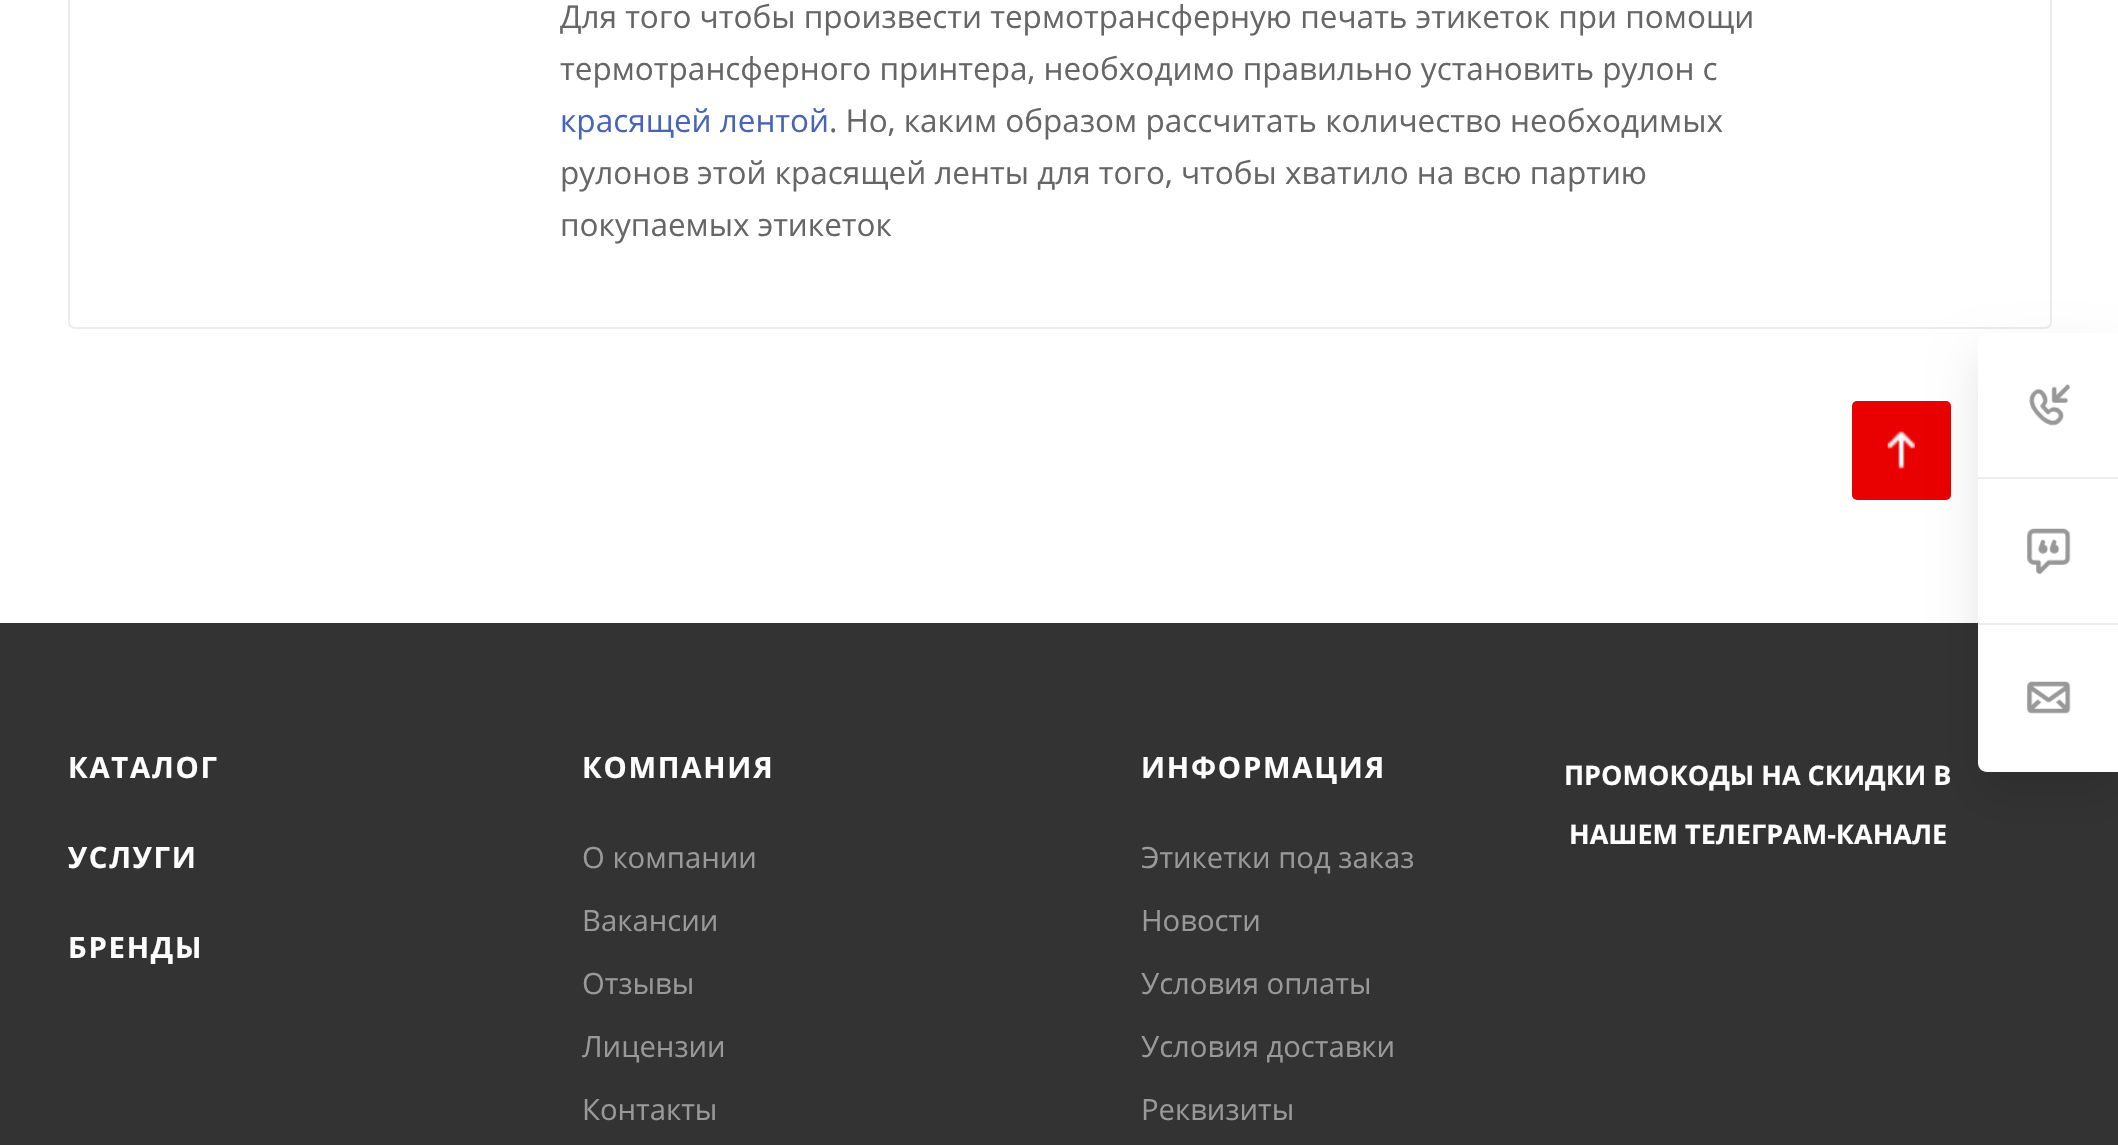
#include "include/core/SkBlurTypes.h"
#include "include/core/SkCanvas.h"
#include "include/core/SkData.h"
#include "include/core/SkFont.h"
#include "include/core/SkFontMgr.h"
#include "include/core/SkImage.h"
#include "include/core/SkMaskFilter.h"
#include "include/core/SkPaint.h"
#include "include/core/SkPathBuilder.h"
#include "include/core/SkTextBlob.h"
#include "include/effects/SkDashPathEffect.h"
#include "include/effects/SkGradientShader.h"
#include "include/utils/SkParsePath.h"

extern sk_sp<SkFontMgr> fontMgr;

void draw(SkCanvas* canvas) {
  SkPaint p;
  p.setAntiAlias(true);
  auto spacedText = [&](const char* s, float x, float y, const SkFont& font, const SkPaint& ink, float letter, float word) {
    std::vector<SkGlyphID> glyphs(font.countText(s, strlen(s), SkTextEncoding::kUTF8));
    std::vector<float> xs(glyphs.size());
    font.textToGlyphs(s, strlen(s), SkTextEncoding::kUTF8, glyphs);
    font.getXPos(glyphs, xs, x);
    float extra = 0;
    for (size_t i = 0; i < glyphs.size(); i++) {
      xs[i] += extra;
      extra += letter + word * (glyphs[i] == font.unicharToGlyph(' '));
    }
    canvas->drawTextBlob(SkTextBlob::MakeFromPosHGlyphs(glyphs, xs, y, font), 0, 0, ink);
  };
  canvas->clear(SK_ColorWHITE);
  p.setStyle(SkPaint::kStroke_Style);
  p.setStrokeWidth(2);
  p.setColor(SkColorSetRGB(236, 236, 236));
  canvas->drawRoundRect(SkRect::MakeLTRB(69, -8, 2051, 328), 6, 6, p);
  p.setStyle(SkPaint::kFill_Style);
  p.setColor(SkColorSetRGB(233, 0, 0));
  canvas->drawRoundRect(SkRect::MakeLTRB(1852, 401, 1951, 500), 5, 5, p);
  canvas->drawImageRect(SkImages::DeferredFromEncodedData(SkData::MakeFromFileName("images/1.png")), SkRect::MakeLTRB(1887, 431, 1915, 469), SkSamplingOptions());
  p.setColor(SkColorSetRGB(51, 51, 51));
  canvas->drawRect(SkRect::MakeLTRB(0, 623, 2118, 1145), p);
  p.setColor(SkColorSetARGB(26, 0, 0, 0));
  p.setMaskFilter(SkMaskFilter::MakeBlur(kNormal_SkBlurStyle, 22.5f));
  canvas->drawRoundRect(SkRect::MakeLTRB(1978, 356, 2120, 794), 9, 9, p);
  p.setMaskFilter(nullptr);
  p.setColor(SK_ColorWHITE);
  canvas->drawPath(SkPathBuilder().moveTo(1987, 333).lineTo(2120, 333).lineTo(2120, 772).lineTo(1987, 772).cubicTo(1982, 772, 1978, 768, 1978, 763).lineTo(1978, 342).cubicTo(1978, 337, 1982, 333, 1987, 333).close().detach(), p);
  p.setColor(SkColorSetRGB(236, 236, 236));
  canvas->drawRect(SkRect::MakeLTRB(1978, 477, 2118, 479), p);
  canvas->drawImageRect(SkImages::DeferredFromEncodedData(SkData::MakeFromFileName("images/2.png")), SkRect::MakeLTRB(2029, 384, 2071, 426), SkSamplingOptions());
  canvas->drawRect(SkRect::MakeLTRB(1978, 623, 2118, 625), p);
  canvas->drawImageRect(SkImages::DeferredFromEncodedData(SkData::MakeFromFileName("images/3.png")), SkRect::MakeLTRB(2027, 528, 2071, 574), SkSamplingOptions());
  canvas->drawImageRect(SkImages::DeferredFromEncodedData(SkData::MakeFromFileName("images/4.png")), SkRect::MakeLTRB(2027, 681, 2071, 714), SkSamplingOptions());
  SkFont font1(fontMgr->matchFamilyStyle("Open Sans", SkFontStyle::Normal()), 31.5f);
  font1.setSubpixel(true);
  p.setColor(SkColorSetRGB(102, 102, 102));
  canvas->drawString("Для того чтобы произвести термотрансферную печать этикеток при помощи", 560, 28, font1, p);
  canvas->drawString("термотрансферного принтера, необходимо правильно установить рулон с", 560, 80, font1, p);
  p.setColor(SkColorSetRGB(71, 100, 186));
  canvas->drawString("красящей лентой", 560, 132, font1, p);
  p.setColor(SkColorSetRGB(102, 102, 102));
  canvas->drawString(". Но, каким образом рассчитать количество необходимых", 829, 132, font1, p);
  canvas->drawString("рулонов этой красящей ленты для того, чтобы хватило на всю партию", 560, 184, font1, p);
  canvas->drawString("покупаемых этикеток", 560, 236, font1, p);
  SkFont font2(fontMgr->matchFamilyStyle("Open Sans", SkFontStyle::Bold()), 29.25f);
  font2.setSubpixel(true);
  p.setColor(SK_ColorWHITE);
  spacedText("КАТАЛОГ", 68, 778, font2, p, 1.75f, 0);
  spacedText("УСЛУГИ", 68, 868, font2, p, 1.75f, 0);
  spacedText("БРЕНДЫ", 68, 958, font2, p, 1.75f, 0);
  spacedText("КОМПАНИЯ", 582, 778, font2, p, 1.75f, 0);
  SkFont font3(fontMgr->matchFamilyStyle("Open Sans", SkFontStyle::Normal()), 29.25f);
  font3.setSubpixel(true);
  p.setColor(SkColorSetRGB(153, 153, 153));
  canvas->drawString("О компании", 582, 868, font3, p);
  canvas->drawString("Вакансии", 582, 931, font3, p);
  canvas->drawString("Отзывы", 582, 994, font3, p);
  canvas->drawString("Лицензии", 582, 1057, font3, p);
  canvas->drawString("Контакты", 582, 1120, font3, p);
  p.setColor(SK_ColorWHITE);
  spacedText("ИНФОРМАЦИЯ", 1141, 778, font2, p, 1.75f, 0);
  p.setColor(SkColorSetRGB(153, 153, 153));
  canvas->drawString("Этикетки под заказ", 1141, 868, font3, p);
  canvas->drawString("Новости", 1141, 931, font3, p);
  canvas->drawString("Условия оплаты", 1141, 994, font3, p);
  canvas->drawString("Условия доставки", 1141, 1057, font3, p);
  canvas->drawString("Реквизиты", 1141, 1120, font3, p);
  SkFont font4(fontMgr->matchFamilyStyle("Open Sans", SkFontStyle::Bold()), 27);
  font4.setSubpixel(true);
  p.setColor(SK_ColorWHITE);
  canvas->drawString("ПРОМОКОДЫ НА СКИДКИ В", 1564, 785, font4, p);
  canvas->drawString("НАШЕМ ТЕЛЕГРАМ-КАНАЛЕ", 1569, 844, font4, p);
}
